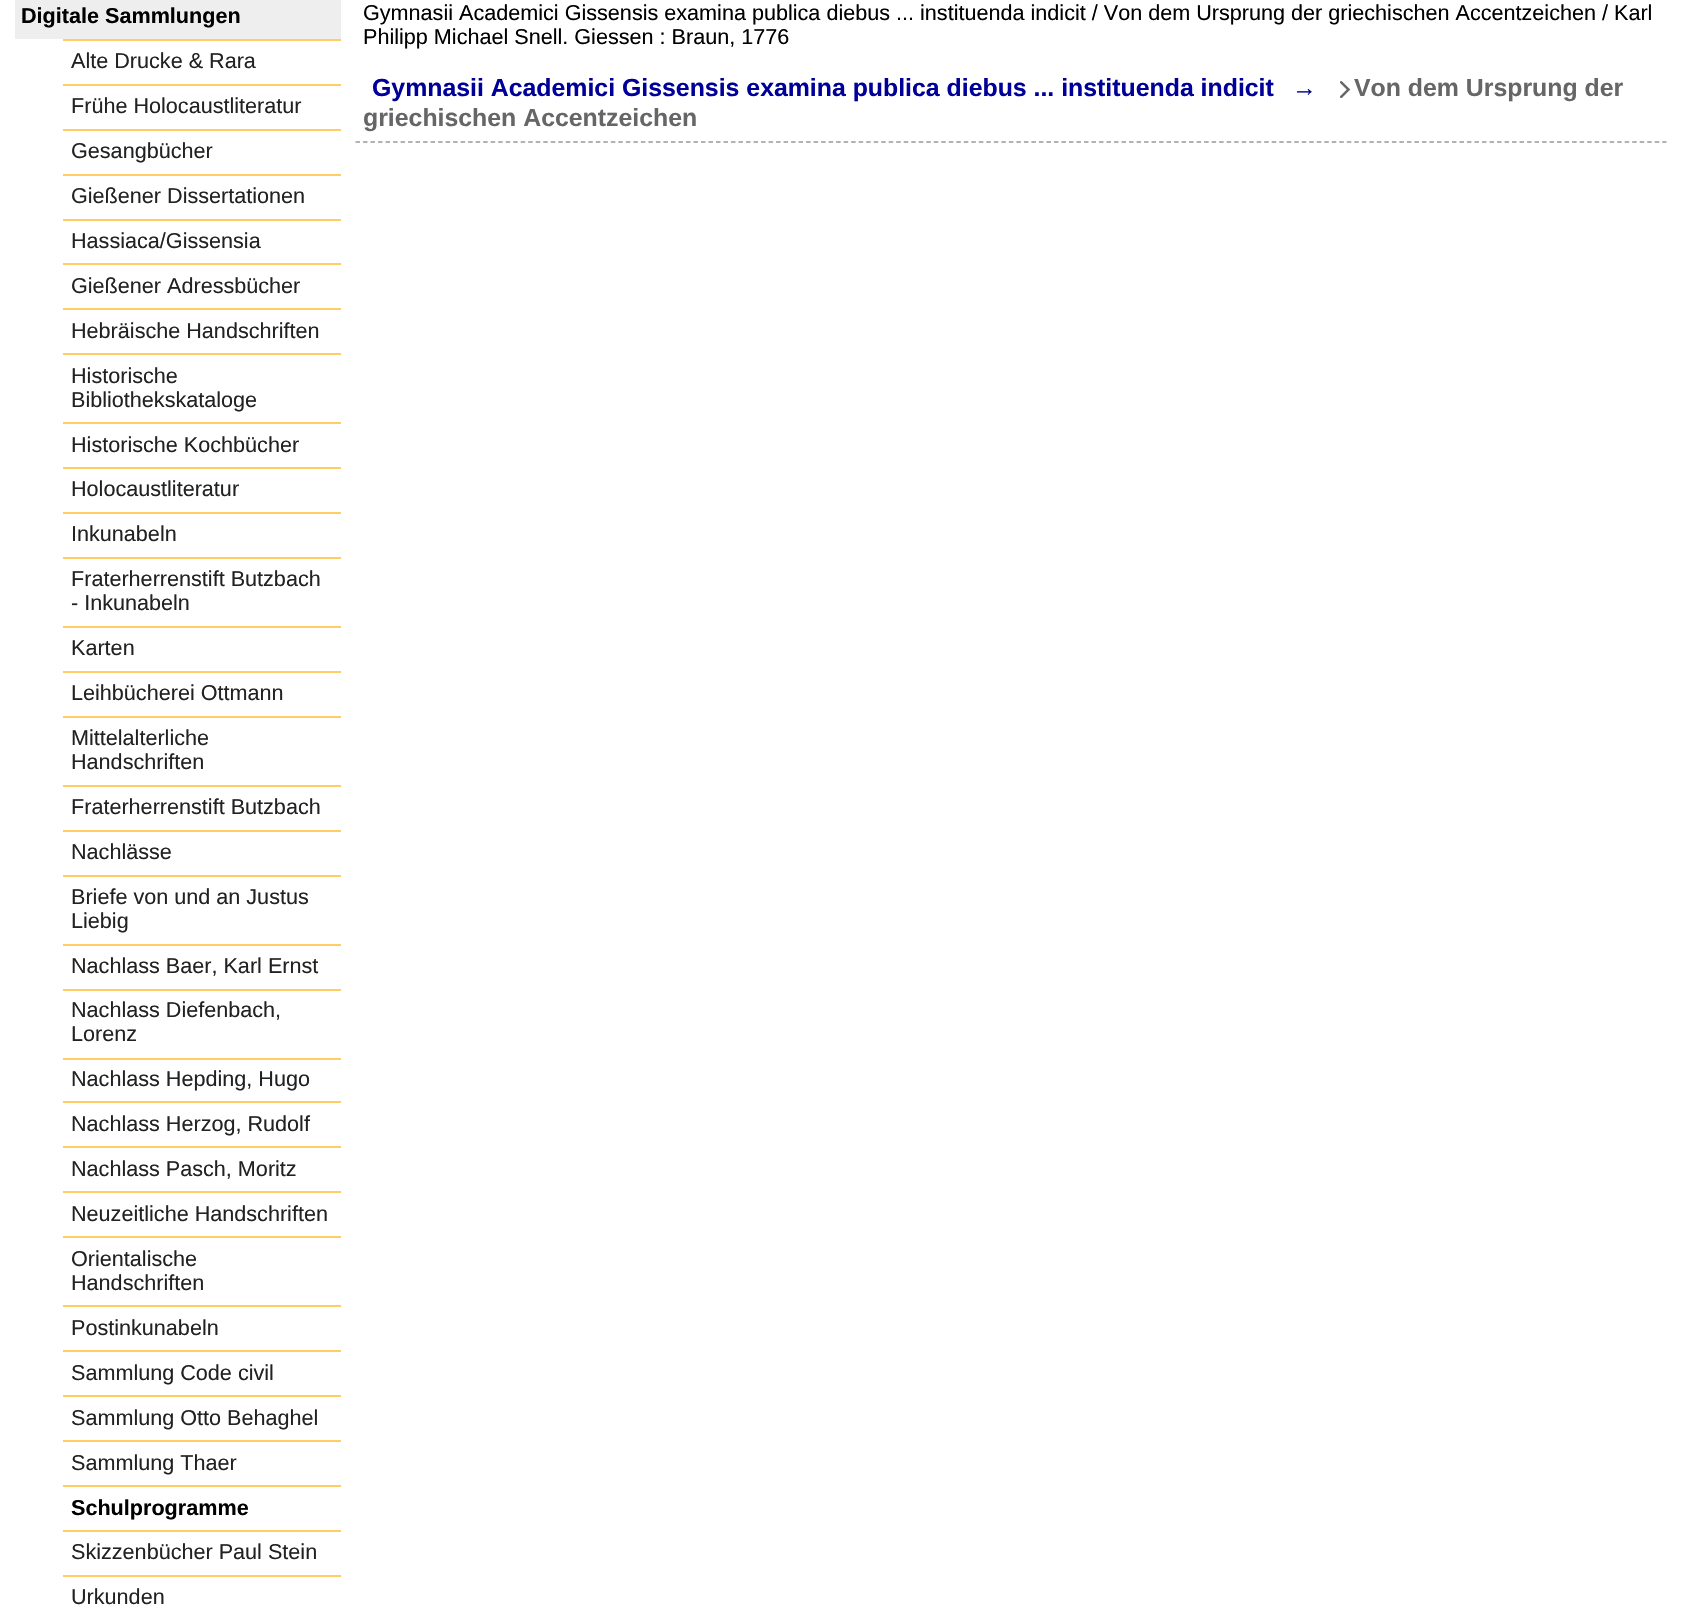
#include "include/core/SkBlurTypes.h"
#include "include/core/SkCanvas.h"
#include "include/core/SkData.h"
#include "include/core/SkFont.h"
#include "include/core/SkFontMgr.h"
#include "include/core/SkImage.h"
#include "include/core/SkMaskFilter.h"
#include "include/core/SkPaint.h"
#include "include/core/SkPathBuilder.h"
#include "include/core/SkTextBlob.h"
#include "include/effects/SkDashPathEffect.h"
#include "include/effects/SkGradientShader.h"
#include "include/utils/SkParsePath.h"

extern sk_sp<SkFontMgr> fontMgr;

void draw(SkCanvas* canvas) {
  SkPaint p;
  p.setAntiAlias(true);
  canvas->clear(SK_ColorWHITE);
  p.setColor(SkColorSetRGB(238, 238, 238));
  canvas->drawRect(SkRect::MakeLTRB(15, 0, 341, 39), p);
  p.setColor(SkColorSetRGB(255, 204, 102));
  canvas->drawRect(SkRect::MakeLTRB(63, 39, 341, 41), p);
  canvas->drawRect(SkRect::MakeLTRB(63, 84, 341, 86), p);
  canvas->drawRect(SkRect::MakeLTRB(63, 129, 341, 131), p);
  canvas->drawRect(SkRect::MakeLTRB(63, 174, 341, 176), p);
  canvas->drawRect(SkRect::MakeLTRB(63, 219, 341, 221), p);
  canvas->drawRect(SkRect::MakeLTRB(63, 263, 341, 265), p);
  canvas->drawRect(SkRect::MakeLTRB(63, 308, 341, 310), p);
  canvas->drawRect(SkRect::MakeLTRB(63, 353, 341, 355), p);
  canvas->drawRect(SkRect::MakeLTRB(63, 422, 341, 424), p);
  canvas->drawRect(SkRect::MakeLTRB(63, 467, 341, 469), p);
  canvas->drawRect(SkRect::MakeLTRB(63, 512, 341, 514), p);
  canvas->drawRect(SkRect::MakeLTRB(63, 557, 341, 559), p);
  canvas->drawRect(SkRect::MakeLTRB(63, 626, 341, 628), p);
  canvas->drawRect(SkRect::MakeLTRB(63, 671, 341, 673), p);
  canvas->drawRect(SkRect::MakeLTRB(63, 716, 341, 718), p);
  canvas->drawRect(SkRect::MakeLTRB(63, 785, 341, 787), p);
  canvas->drawRect(SkRect::MakeLTRB(63, 830, 341, 832), p);
  canvas->drawRect(SkRect::MakeLTRB(63, 875, 341, 877), p);
  canvas->drawRect(SkRect::MakeLTRB(63, 944, 341, 946), p);
  canvas->drawRect(SkRect::MakeLTRB(63, 989, 341, 991), p);
  canvas->drawRect(SkRect::MakeLTRB(63, 1058, 341, 1060), p);
  canvas->drawRect(SkRect::MakeLTRB(63, 1101, 341, 1103), p);
  canvas->drawRect(SkRect::MakeLTRB(63, 1146, 341, 1148), p);
  canvas->drawRect(SkRect::MakeLTRB(63, 1191, 341, 1193), p);
  canvas->drawRect(SkRect::MakeLTRB(63, 1236, 341, 1238), p);
  canvas->drawRect(SkRect::MakeLTRB(63, 1305, 341, 1307), p);
  canvas->drawRect(SkRect::MakeLTRB(63, 1350, 341, 1352), p);
  canvas->drawRect(SkRect::MakeLTRB(63, 1395, 341, 1397), p);
  canvas->drawRect(SkRect::MakeLTRB(63, 1440, 341, 1442), p);
  canvas->drawRect(SkRect::MakeLTRB(63, 1485, 341, 1487), p);
  canvas->drawRect(SkRect::MakeLTRB(63, 1530, 341, 1532), p);
  canvas->drawRect(SkRect::MakeLTRB(63, 1575, 341, 1577), p);
  p.setStyle(SkPaint::kStroke_Style);
  p.setStrokeWidth(1.5f);
  p.setColor(SkColorSetRGB(153, 153, 153));
  p.setPathEffect(SkDashPathEffect::Make({{4.5f, 3.01f}}, 0));
  canvas->drawPath(SkPathBuilder().moveTo(355.5f, 142).lineTo(1666.5f, 142).detach(), p);
  p.setPathEffect(nullptr);
  canvas->drawImageRect(SkImages::DeferredFromEncodedData(SkData::MakeFromFileName("images/1.png")), SkRect::MakeLTRB(1340, 81, 1351, 98), SkSamplingOptions());
  SkFont font1(fontMgr->matchFamilyStyle("Liberation Sans", SkFontStyle::Bold()), 21.6f);
  font1.setSubpixel(true);
  p.setStyle(SkPaint::kFill_Style);
  p.setColor(SK_ColorBLACK);
  canvas->drawString("Digitale Sammlungen", 21, 23, font1, p);
  SkFont font2(fontMgr->matchFamilyStyle("Liberation Sans", SkFontStyle::Normal()), 21.6f);
  font2.setSubpixel(true);
  p.setColor(SkColorSetRGB(34, 34, 34));
  canvas->drawString("Alte Drucke & Rara", 71, 68, font2, p);
  canvas->drawString("Frühe Holocaustliteratur", 71, 113, font2, p);
  canvas->drawString("Gesangbücher", 71, 158, font2, p);
  canvas->drawString("Gießener Dissertationen", 71, 203, font2, p);
  canvas->drawString("Hassiaca/Gissensia", 71, 248, font2, p);
  canvas->drawString("Gießener Adressbücher", 71, 293, font2, p);
  canvas->drawString("Hebräische Handschriften", 71, 338, font2, p);
  canvas->drawString("Historische", 71, 383, font2, p);
  canvas->drawString("Bibliothekskataloge", 71, 407, font2, p);
  canvas->drawString("Historische Kochbücher", 71, 452, font2, p);
  canvas->drawString("Holocaustliteratur", 71, 496, font2, p);
  canvas->drawString("Inkunabeln", 71, 541, font2, p);
  canvas->drawString("Fraterherrenstift Butzbach", 71, 586, font2, p);
  canvas->drawString("- Inkunabeln", 71, 610, font2, p);
  canvas->drawString("Karten", 71, 655, font2, p);
  canvas->drawString("Leihbücherei Ottmann", 71, 700, font2, p);
  canvas->drawString("Mittelalterliche", 71, 745, font2, p);
  canvas->drawString("Handschriften", 71, 769, font2, p);
  canvas->drawString("Fraterherrenstift Butzbach", 71, 814, font2, p);
  canvas->drawString("Nachlässe", 71, 859, font2, p);
  canvas->drawString("Briefe von und an Justus", 71, 904, font2, p);
  canvas->drawString("Liebig", 71, 928, font2, p);
  canvas->drawString("Nachlass Baer, Karl Ernst", 71, 973, font2, p);
  canvas->drawString("Nachlass Diefenbach,", 71, 1017, font2, p);
  canvas->drawString("Lorenz", 71, 1041, font2, p);
  canvas->drawString("Nachlass Hepding, Hugo", 71, 1086, font2, p);
  canvas->drawString("Nachlass Herzog, Rudolf", 71, 1131, font2, p);
  canvas->drawString("Nachlass Pasch, Moritz", 71, 1176, font2, p);
  canvas->drawString("Neuzeitliche Handschriften", 71, 1221, font2, p);
  canvas->drawString("Orientalische", 71, 1266, font2, p);
  canvas->drawString("Handschriften", 71, 1290, font2, p);
  canvas->drawString("Postinkunabeln", 71, 1335, font2, p);
  canvas->drawString("Sammlung Code civil", 71, 1380, font2, p);
  canvas->drawString("Sammlung Otto Behaghel", 71, 1425, font2, p);
  canvas->drawString("Sammlung Thaer", 71, 1470, font2, p);
  p.setColor(SK_ColorBLACK);
  canvas->drawString("Schulprogramme", 71, 1515, font1, p);
  p.setColor(SkColorSetRGB(34, 34, 34));
  canvas->drawString("Skizzenbücher Paul Stein", 71, 1559, font2, p);
  canvas->drawString("Urkunden", 71, 1604, font2, p);
  p.setColor(SK_ColorBLACK);
  canvas->drawString("Gymnasii Academici Gissensis examina publica diebus ... instituenda indicit / Von dem Ursprung der griechischen Accentzeichen / Karl", 363, 20, font2, p);
  canvas->drawString("Philipp Michael Snell. Giessen : Braun, 1776", 363, 44, font2, p);
  SkFont font3(fontMgr->matchFamilyStyle("Liberation Sans", SkFontStyle::Bold()), 24.85f);
  font3.setSubpixel(true);
  p.setColor(SkColorSetRGB(0, 0, 153));
  canvas->drawString("Gymnasii Academici Gissensis examina publica diebus ... instituenda indicit", 372, 96, font3, p);
  canvas->drawString("→", 1292, 96, font3, p);
  p.setColor(SkColorSetRGB(102, 102, 102));
  canvas->drawString("Von dem Ursprung der", 1354, 96, font3, p);
  canvas->drawString("griechischen Accentzeichen", 363, 126, font3, p);
}
